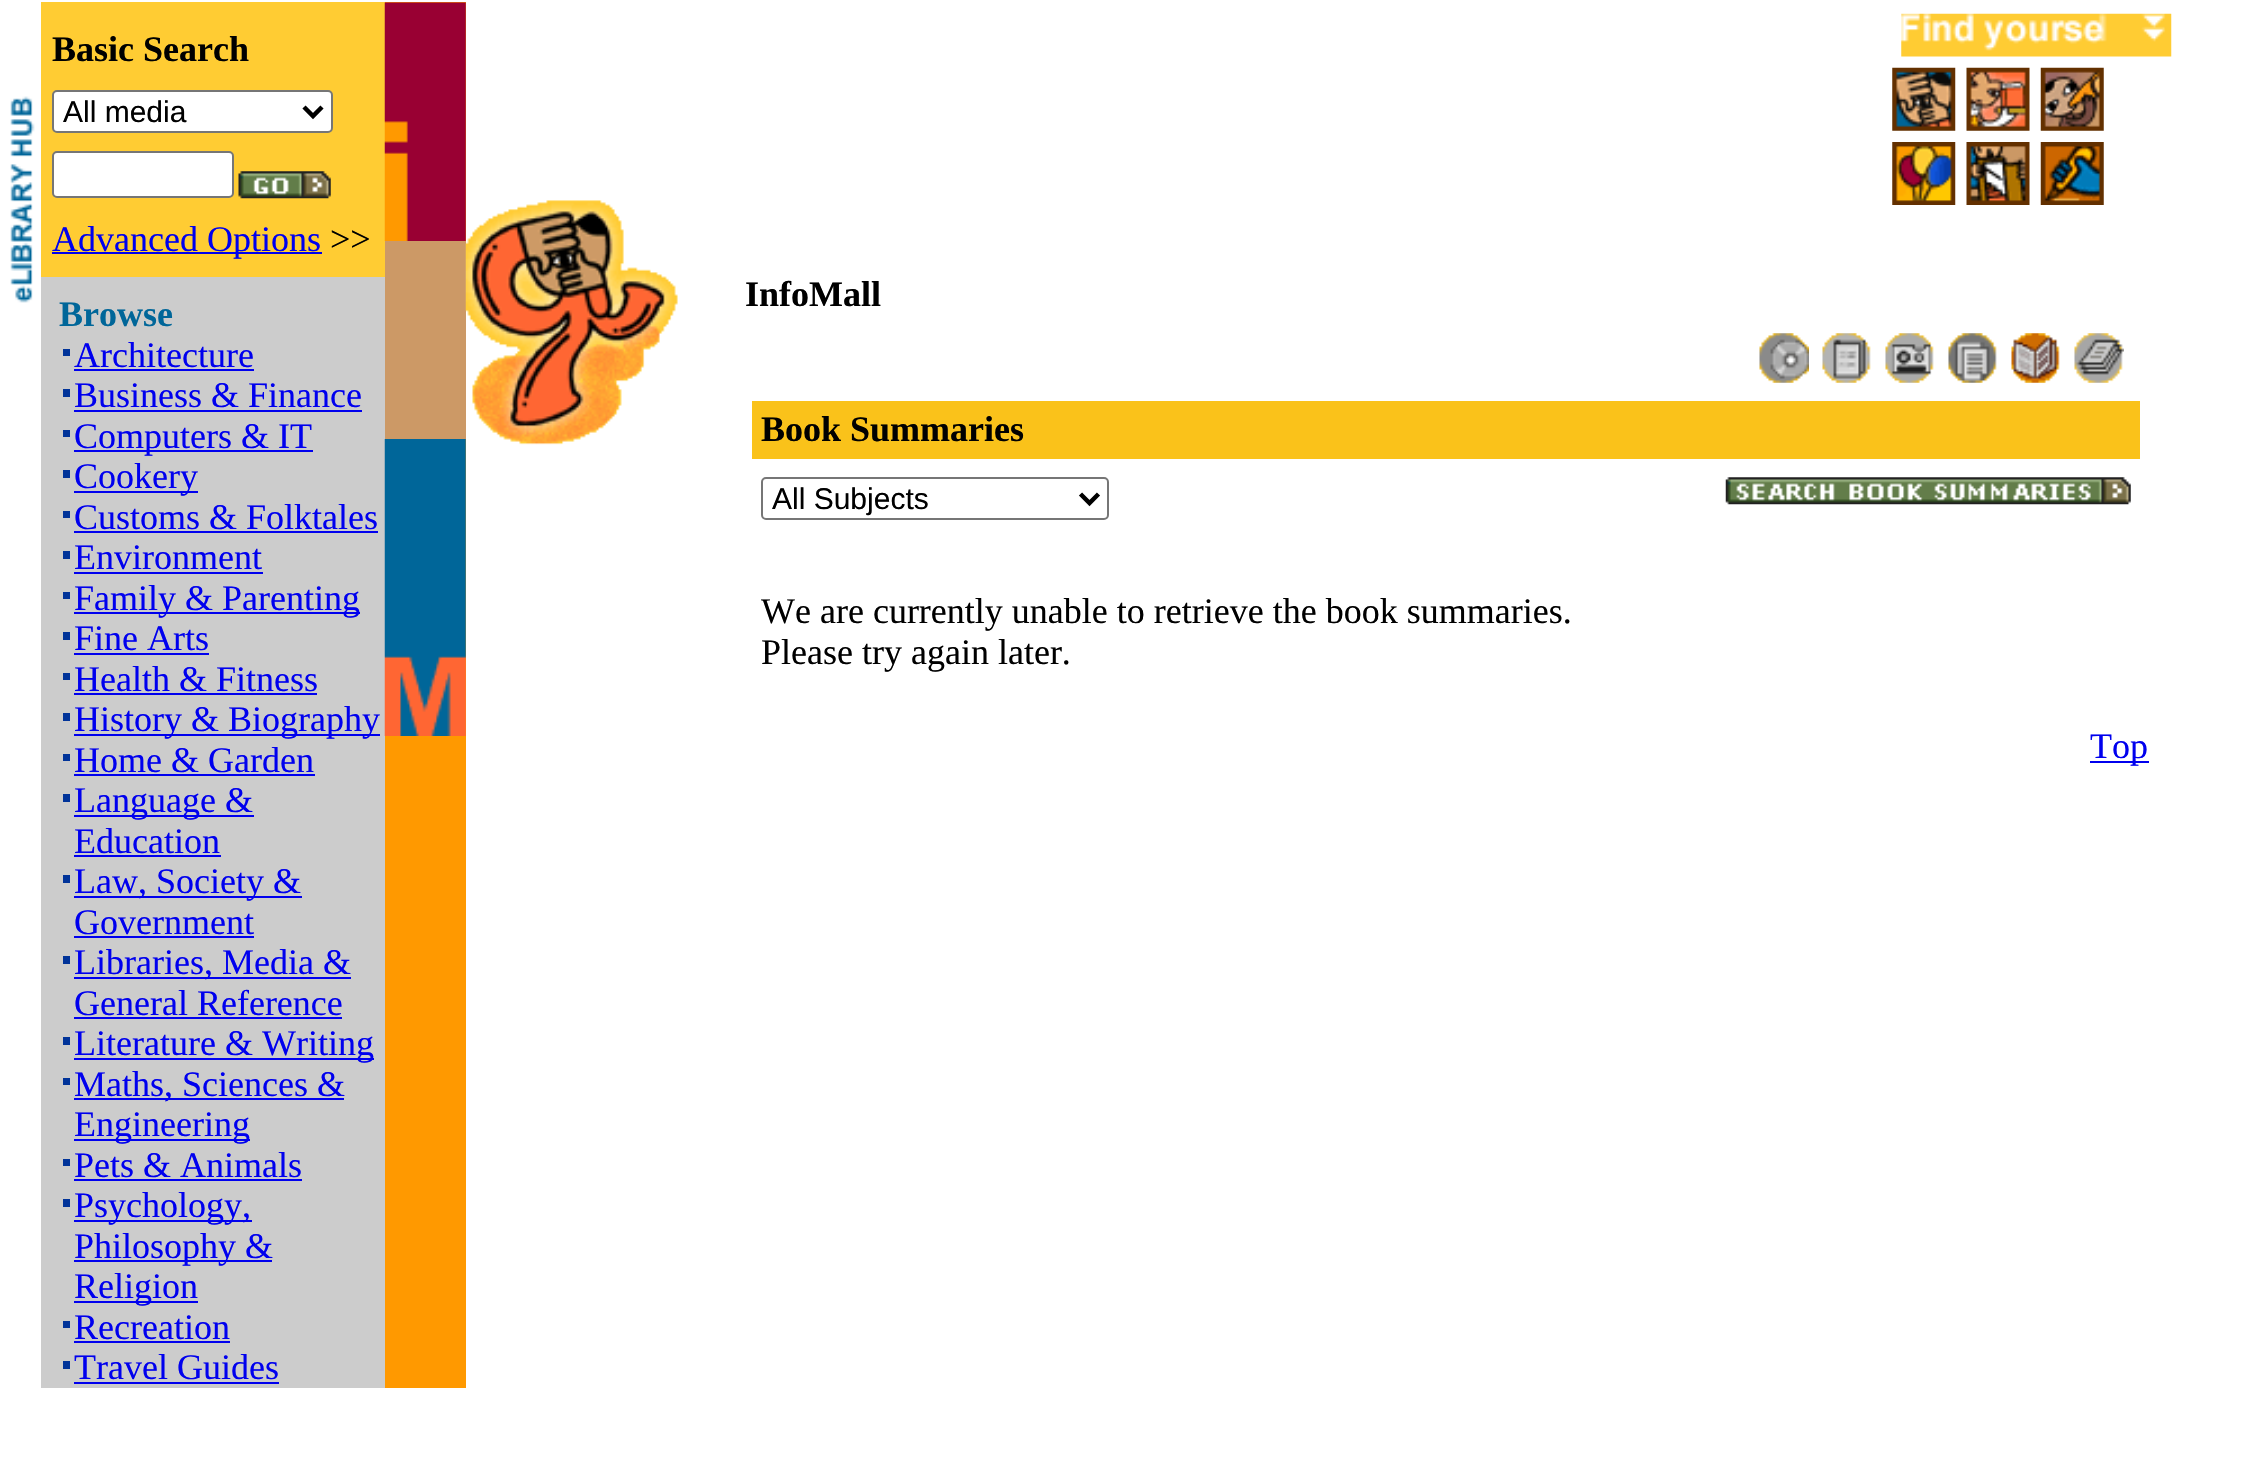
#include "include/core/SkBlurTypes.h"
#include "include/core/SkCanvas.h"
#include "include/core/SkData.h"
#include "include/core/SkFont.h"
#include "include/core/SkFontMgr.h"
#include "include/core/SkImage.h"
#include "include/core/SkMaskFilter.h"
#include "include/core/SkPaint.h"
#include "include/core/SkPathBuilder.h"
#include "include/core/SkTextBlob.h"
#include "include/effects/SkDashPathEffect.h"
#include "include/effects/SkGradientShader.h"
#include "include/utils/SkParsePath.h"

extern sk_sp<SkFontMgr> fontMgr;

void draw(SkCanvas* canvas) {
  SkPaint p;
  p.setAntiAlias(true);
  canvas->clear(SK_ColorWHITE);
  canvas->drawImageRect(SkImages::DeferredFromEncodedData(SkData::MakeFromFileName("images/1.png")), SkRect::MakeLTRB(10, 96, 35, 303), SkSamplingOptions());
  p.setColor(SkColorSetRGB(204, 204, 204));
  canvas->drawRect(SkRect::MakeLTRB(41, 277, 385, 1388), p);
  p.setColor(SkColorSetRGB(255, 204, 51));
  canvas->drawRect(SkRect::MakeLTRB(41, 2, 385, 277), p);
  p.setColor(SK_ColorWHITE);
  canvas->drawRoundRect(SkRect::MakeLTRB(53, 91, 332, 132), 4, 4, p);
  p.setStyle(SkPaint::kStroke_Style);
  p.setStrokeWidth(2);
  p.setColor(SkColorSetRGB(118, 118, 118));
  canvas->drawRoundRect(SkRect::MakeLTRB(53, 91, 332, 132), 4, 4, p);
  p.setStrokeWidth(4.5f);
  p.setColor(SK_ColorBLACK);
  canvas->drawPath(SkPathBuilder().moveTo(304, 107).lineTo(313, 116).lineTo(322, 107).detach(), p);
  p.setStyle(SkPaint::kFill_Style);
  p.setColor(SK_ColorWHITE);
  canvas->drawRoundRect(SkRect::MakeLTRB(53, 152, 233, 197), 4, 4, p);
  p.setStyle(SkPaint::kStroke_Style);
  p.setStrokeWidth(2);
  p.setColor(SkColorSetRGB(118, 118, 118));
  canvas->drawRoundRect(SkRect::MakeLTRB(53, 152, 233, 197), 4, 4, p);
  canvas->drawImageRect(SkImages::DeferredFromEncodedData(SkData::MakeFromFileName("images/2.png")), SkRect::MakeLTRB(238, 171, 331, 199), SkSamplingOptions());
  p.setStyle(SkPaint::kFill_Style);
  p.setColor(SkColorSetRGB(0, 0, 238));
  canvas->drawRect(SkRect::MakeLTRB(52, 252, 322, 254), p);
  p.setColor(SkColorSetRGB(0, 51, 153));
  canvas->drawRect(SkRect::MakeLTRB(63, 349, 70, 356), p);
  p.setColor(SkColorSetRGB(0, 0, 238));
  canvas->drawRect(SkRect::MakeLTRB(74, 369, 254, 371), p);
  p.setColor(SkColorSetRGB(0, 51, 153));
  canvas->drawRect(SkRect::MakeLTRB(63, 389, 70, 397), p);
  p.setColor(SkColorSetRGB(0, 0, 238));
  canvas->drawRect(SkRect::MakeLTRB(74, 410, 362, 412), p);
  p.setColor(SkColorSetRGB(0, 51, 153));
  canvas->drawRect(SkRect::MakeLTRB(63, 430, 70, 437), p);
  p.setColor(SkColorSetRGB(0, 0, 238));
  canvas->drawRect(SkRect::MakeLTRB(74, 450, 313, 452), p);
  p.setColor(SkColorSetRGB(0, 51, 153));
  canvas->drawRect(SkRect::MakeLTRB(63, 470, 70, 478), p);
  p.setColor(SkColorSetRGB(0, 0, 238));
  canvas->drawRect(SkRect::MakeLTRB(74, 491, 198, 493), p);
  p.setColor(SkColorSetRGB(0, 51, 153));
  canvas->drawRect(SkRect::MakeLTRB(63, 511, 70, 518), p);
  p.setColor(SkColorSetRGB(0, 0, 238));
  canvas->drawRect(SkRect::MakeLTRB(74, 531, 378, 533), p);
  p.setColor(SkColorSetRGB(0, 51, 153));
  canvas->drawRect(SkRect::MakeLTRB(63, 551, 70, 559), p);
  p.setColor(SkColorSetRGB(0, 0, 238));
  canvas->drawRect(SkRect::MakeLTRB(74, 572, 263, 574), p);
  p.setColor(SkColorSetRGB(0, 51, 153));
  canvas->drawRect(SkRect::MakeLTRB(63, 592, 70, 599), p);
  p.setColor(SkColorSetRGB(0, 0, 238));
  canvas->drawRect(SkRect::MakeLTRB(74, 612, 360, 614), p);
  p.setColor(SkColorSetRGB(0, 51, 153));
  canvas->drawRect(SkRect::MakeLTRB(63, 632, 70, 640), p);
  p.setColor(SkColorSetRGB(0, 0, 238));
  canvas->drawRect(SkRect::MakeLTRB(74, 653, 209, 655), p);
  p.setColor(SkColorSetRGB(0, 51, 153));
  canvas->drawRect(SkRect::MakeLTRB(63, 673, 70, 680), p);
  p.setColor(SkColorSetRGB(0, 0, 238));
  canvas->drawRect(SkRect::MakeLTRB(74, 693, 317, 695), p);
  p.setColor(SkColorSetRGB(0, 51, 153));
  canvas->drawRect(SkRect::MakeLTRB(63, 713, 70, 721), p);
  p.setColor(SkColorSetRGB(0, 0, 238));
  canvas->drawRect(SkRect::MakeLTRB(74, 734, 380, 736), p);
  p.setColor(SkColorSetRGB(0, 51, 153));
  canvas->drawRect(SkRect::MakeLTRB(63, 754, 70, 761), p);
  p.setColor(SkColorSetRGB(0, 0, 238));
  canvas->drawRect(SkRect::MakeLTRB(74, 774, 315, 776), p);
  p.setColor(SkColorSetRGB(0, 51, 153));
  canvas->drawRect(SkRect::MakeLTRB(63, 794, 70, 802), p);
  p.setColor(SkColorSetRGB(0, 0, 238));
  canvas->drawRect(SkRect::MakeLTRB(74, 815, 254, 817), p);
  canvas->drawRect(SkRect::MakeLTRB(74, 855, 221, 857), p);
  p.setColor(SkColorSetRGB(0, 51, 153));
  canvas->drawRect(SkRect::MakeLTRB(63, 875, 70, 883), p);
  p.setColor(SkColorSetRGB(0, 0, 238));
  canvas->drawRect(SkRect::MakeLTRB(74, 896, 302, 898), p);
  canvas->drawRect(SkRect::MakeLTRB(74, 936, 254, 938), p);
  p.setColor(SkColorSetRGB(0, 51, 153));
  canvas->drawRect(SkRect::MakeLTRB(63, 956, 70, 964), p);
  p.setColor(SkColorSetRGB(0, 0, 238));
  canvas->drawRect(SkRect::MakeLTRB(74, 977, 351, 979), p);
  canvas->drawRect(SkRect::MakeLTRB(74, 1017, 342, 1019), p);
  p.setColor(SkColorSetRGB(0, 51, 153));
  canvas->drawRect(SkRect::MakeLTRB(63, 1037, 70, 1045), p);
  p.setColor(SkColorSetRGB(0, 0, 238));
  canvas->drawRect(SkRect::MakeLTRB(74, 1058, 374, 1060), p);
  p.setColor(SkColorSetRGB(0, 51, 153));
  canvas->drawRect(SkRect::MakeLTRB(63, 1078, 70, 1085), p);
  p.setColor(SkColorSetRGB(0, 0, 238));
  canvas->drawRect(SkRect::MakeLTRB(74, 1098, 344, 1100), p);
  canvas->drawRect(SkRect::MakeLTRB(74, 1139, 250, 1141), p);
  p.setColor(SkColorSetRGB(0, 51, 153));
  canvas->drawRect(SkRect::MakeLTRB(63, 1159, 70, 1166), p);
  p.setColor(SkColorSetRGB(0, 0, 238));
  canvas->drawRect(SkRect::MakeLTRB(74, 1179, 302, 1181), p);
  p.setColor(SkColorSetRGB(0, 51, 153));
  canvas->drawRect(SkRect::MakeLTRB(63, 1199, 70, 1207), p);
  p.setColor(SkColorSetRGB(0, 0, 238));
  canvas->drawRect(SkRect::MakeLTRB(74, 1220, 252, 1222), p);
  canvas->drawRect(SkRect::MakeLTRB(74, 1260, 272, 1262), p);
  canvas->drawRect(SkRect::MakeLTRB(74, 1301, 198, 1303), p);
  p.setColor(SkColorSetRGB(0, 51, 153));
  canvas->drawRect(SkRect::MakeLTRB(63, 1321, 70, 1328), p);
  p.setColor(SkColorSetRGB(0, 0, 238));
  canvas->drawRect(SkRect::MakeLTRB(74, 1341, 230, 1343), p);
  p.setColor(SkColorSetRGB(0, 51, 153));
  canvas->drawRect(SkRect::MakeLTRB(63, 1361, 70, 1369), p);
  p.setColor(SkColorSetRGB(0, 0, 238));
  canvas->drawRect(SkRect::MakeLTRB(74, 1382, 279, 1384), p);
  p.setColor(SkColorSetRGB(255, 153, 0));
  canvas->drawRect(SkRect::MakeLTRB(385, 2, 466, 1388), p);
  canvas->drawImageRect(SkImages::DeferredFromEncodedData(SkData::MakeFromFileName("images/3.png")), SkRect::MakeLTRB(384, 2, 466, 241), SkSamplingOptions());
  p.setColor(SkColorSetRGB(204, 153, 102));
  canvas->drawRect(SkRect::MakeLTRB(385, 241, 466, 439), p);
  canvas->drawImageRect(SkImages::DeferredFromEncodedData(SkData::MakeFromFileName("images/4.png")), SkRect::MakeLTRB(384, 439, 466, 736), SkSamplingOptions());
  canvas->drawImageRect(SkImages::DeferredFromEncodedData(SkData::MakeFromFileName("images/5.png")), SkRect::MakeLTRB(465, 200, 678, 445), SkSamplingOptions());
  canvas->drawImageRect(SkImages::DeferredFromEncodedData(SkData::MakeFromFileName("images/6.png")), SkRect::MakeLTRB(1901, 13, 2172, 57), SkSamplingOptions());
  canvas->drawImageRect(SkImages::DeferredFromEncodedData(SkData::MakeFromFileName("images/7.png")), SkRect::MakeLTRB(1892, 67, 1956, 131), SkSamplingOptions());
  canvas->drawImageRect(SkImages::DeferredFromEncodedData(SkData::MakeFromFileName("images/8.png")), SkRect::MakeLTRB(1966, 67, 2030, 131), SkSamplingOptions());
  canvas->drawImageRect(SkImages::DeferredFromEncodedData(SkData::MakeFromFileName("images/9.png")), SkRect::MakeLTRB(2040, 67, 2104, 131), SkSamplingOptions());
  canvas->drawImageRect(SkImages::DeferredFromEncodedData(SkData::MakeFromFileName("images/10.png")), SkRect::MakeLTRB(1892, 142, 1956, 205), SkSamplingOptions());
  canvas->drawImageRect(SkImages::DeferredFromEncodedData(SkData::MakeFromFileName("images/11.png")), SkRect::MakeLTRB(1966, 142, 2030, 205), SkSamplingOptions());
  canvas->drawImageRect(SkImages::DeferredFromEncodedData(SkData::MakeFromFileName("images/12.png")), SkRect::MakeLTRB(2040, 142, 2104, 205), SkSamplingOptions());
  canvas->drawImageRect(SkImages::DeferredFromEncodedData(SkData::MakeFromFileName("images/13.png")), SkRect::MakeLTRB(1759, 333, 1809, 383), SkSamplingOptions());
  canvas->drawImageRect(SkImages::DeferredFromEncodedData(SkData::MakeFromFileName("images/14.png")), SkRect::MakeLTRB(1822, 333, 1871, 383), SkSamplingOptions());
  canvas->drawImageRect(SkImages::DeferredFromEncodedData(SkData::MakeFromFileName("images/15.png")), SkRect::MakeLTRB(1885, 333, 1934, 383), SkSamplingOptions());
  canvas->drawImageRect(SkImages::DeferredFromEncodedData(SkData::MakeFromFileName("images/16.png")), SkRect::MakeLTRB(1948, 333, 1997, 383), SkSamplingOptions());
  canvas->drawImageRect(SkImages::DeferredFromEncodedData(SkData::MakeFromFileName("images/17.png")), SkRect::MakeLTRB(2011, 333, 2060, 383), SkSamplingOptions());
  canvas->drawImageRect(SkImages::DeferredFromEncodedData(SkData::MakeFromFileName("images/18.png")), SkRect::MakeLTRB(2074, 333, 2124, 383), SkSamplingOptions());
  p.setColor(SkColorSetRGB(250, 194, 26));
  canvas->drawRect(SkRect::MakeLTRB(752, 401, 2140, 459), p);
  p.setStyle(SkPaint::kStroke_Style);
  p.setColor(SkColorSetRGB(118, 118, 118));
  canvas->drawRoundRect(SkRect::MakeLTRB(762, 478, 1108, 519), 4, 4, p);
  p.setStrokeWidth(4.5f);
  p.setColor(SK_ColorBLACK);
  canvas->drawPath(SkPathBuilder().moveTo(1080.5f, 494).lineTo(1089.5f, 503).lineTo(1098.5f, 494).detach(), p);
  canvas->drawImageRect(SkImages::DeferredFromEncodedData(SkData::MakeFromFileName("images/19.png")), SkRect::MakeLTRB(1725, 477, 2131, 505), SkSamplingOptions());
  p.setStyle(SkPaint::kFill_Style);
  p.setColor(SkColorSetRGB(0, 0, 238));
  canvas->drawRect(SkRect::MakeLTRB(2090, 761, 2149, 763), p);
  SkFont font1(fontMgr->matchFamilyStyle("Liberation Serif", SkFontStyle::Bold()), 36);
  font1.setSubpixel(true);
  p.setColor(SK_ColorBLACK);
  canvas->drawString("Basic Search", 52, 61, font1, p);
  SkFont font2(fontMgr->matchFamilyStyle("Liberation Sans", SkFontStyle::Normal()), 30);
  font2.setSubpixel(true);
  canvas->drawString("All media", 63, 122, font2, p);
  SkFont font3(fontMgr->matchFamilyStyle("Liberation Serif", SkFontStyle::Normal()), 36);
  font3.setSubpixel(true);
  p.setColor(SkColorSetRGB(0, 0, 238));
  canvas->drawString("Advanced Options", 52, 251, font3, p);
  p.setColor(SK_ColorBLACK);
  canvas->drawString(">>", 330, 251, font3, p);
  p.setColor(SkColorSetRGB(0, 102, 153));
  canvas->drawString("Browse", 59, 326, font1, p);
  p.setColor(SkColorSetRGB(0, 0, 238));
  canvas->drawString("Architecture", 74, 367, font3, p);
  canvas->drawString("Business & Finance", 74, 407, font3, p);
  canvas->drawString("Computers & IT", 74, 448, font3, p);
  canvas->drawString("Cookery", 74, 488, font3, p);
  canvas->drawString("Customs & Folktales", 74, 529, font3, p);
  canvas->drawString("Environment", 74, 569, font3, p);
  canvas->drawString("Family & Parenting", 74, 610, font3, p);
  canvas->drawString("Fine Arts", 74, 650, font3, p);
  canvas->drawString("Health & Fitness", 74, 691, font3, p);
  canvas->drawString("History & Biography", 74, 731, font3, p);
  canvas->drawString("Home & Garden", 74, 772, font3, p);
  canvas->drawString("Language &", 74, 812, font3, p);
  canvas->drawString("Education", 74, 853, font3, p);
  canvas->drawString("Law, Society &", 74, 893, font3, p);
  canvas->drawString("Government", 74, 934, font3, p);
  canvas->drawString("Libraries, Media &", 74, 974, font3, p);
  canvas->drawString("General Reference", 74, 1015, font3, p);
  canvas->drawString("Literature & Writing", 74, 1055, font3, p);
  canvas->drawString("Maths, Sciences &", 74, 1096, font3, p);
  canvas->drawString("Engineering", 74, 1136, font3, p);
  canvas->drawString("Pets & Animals", 74, 1177, font3, p);
  canvas->drawString("Psychology,", 74, 1217, font3, p);
  canvas->drawString("Philosophy &", 74, 1258, font3, p);
  canvas->drawString("Religion", 74, 1298, font3, p);
  canvas->drawString("Recreation", 74, 1339, font3, p);
  canvas->drawString("Travel Guides", 74, 1379, font3, p);
  p.setColor(SK_ColorBLACK);
  canvas->drawString("InfoMall", 745, 306, font1, p);
  canvas->drawString("Book Summaries", 761, 441, font1, p);
  canvas->drawString("All Subjects", 772, 509, font2, p);
  canvas->drawString("We are currently unable to retrieve the book summaries.", 761, 623, font3, p);
  canvas->drawString("Please try again later.", 761, 664, font3, p);
  p.setColor(SkColorSetRGB(0, 0, 238));
  canvas->drawString("Top", 2090, 758, font3, p);
}
